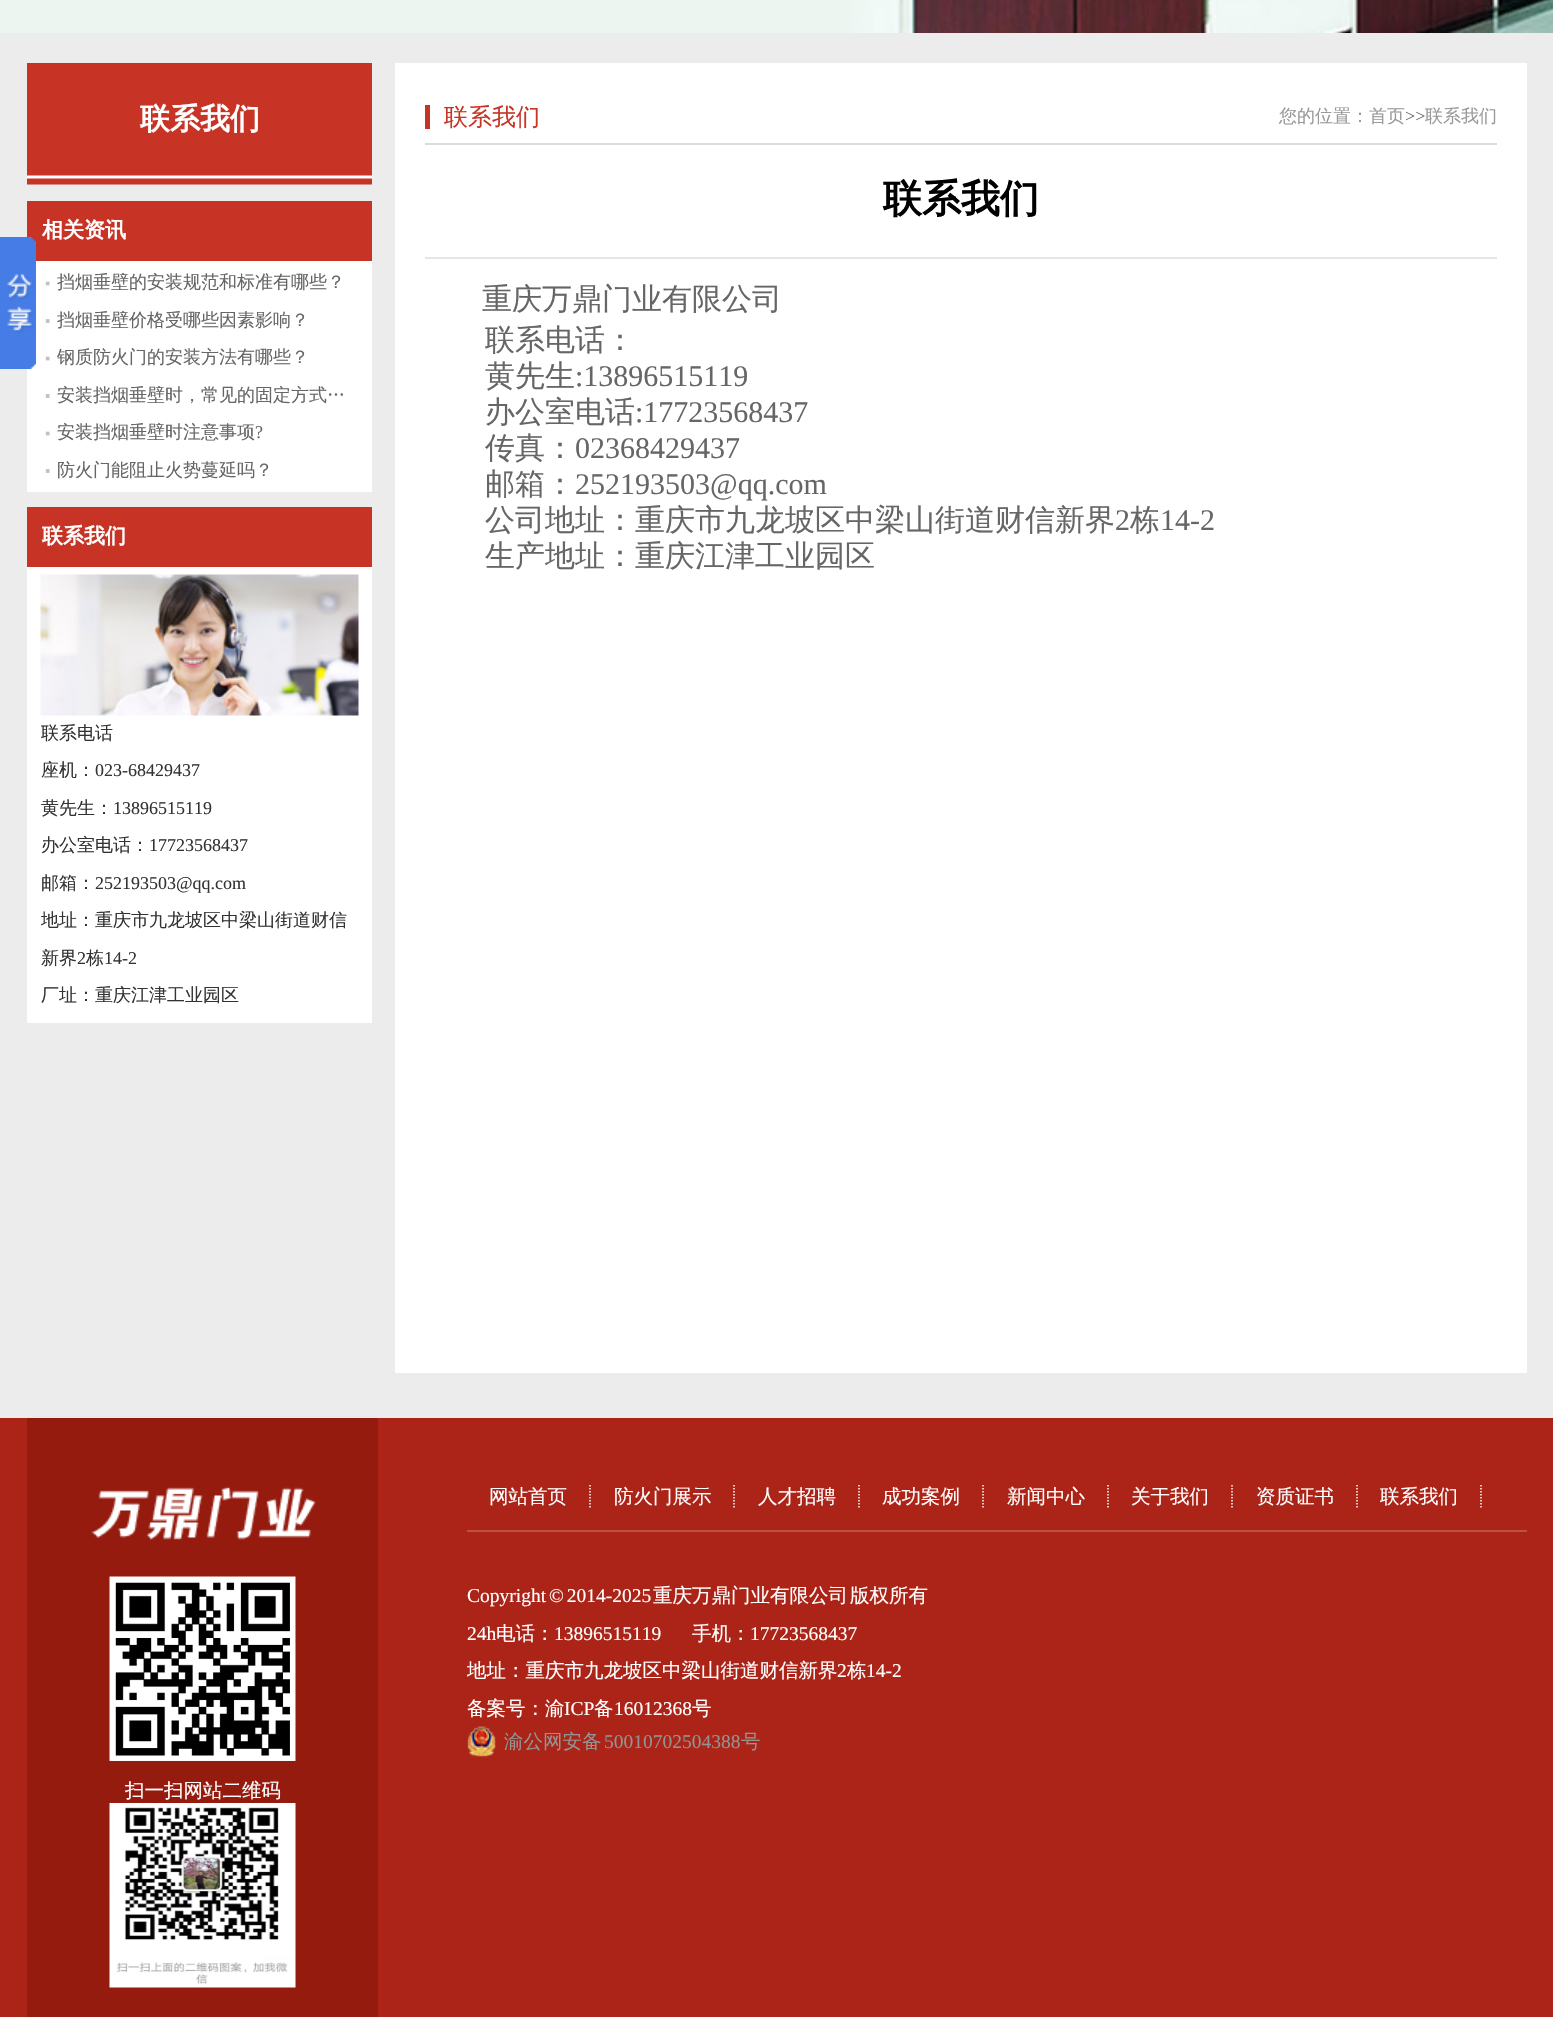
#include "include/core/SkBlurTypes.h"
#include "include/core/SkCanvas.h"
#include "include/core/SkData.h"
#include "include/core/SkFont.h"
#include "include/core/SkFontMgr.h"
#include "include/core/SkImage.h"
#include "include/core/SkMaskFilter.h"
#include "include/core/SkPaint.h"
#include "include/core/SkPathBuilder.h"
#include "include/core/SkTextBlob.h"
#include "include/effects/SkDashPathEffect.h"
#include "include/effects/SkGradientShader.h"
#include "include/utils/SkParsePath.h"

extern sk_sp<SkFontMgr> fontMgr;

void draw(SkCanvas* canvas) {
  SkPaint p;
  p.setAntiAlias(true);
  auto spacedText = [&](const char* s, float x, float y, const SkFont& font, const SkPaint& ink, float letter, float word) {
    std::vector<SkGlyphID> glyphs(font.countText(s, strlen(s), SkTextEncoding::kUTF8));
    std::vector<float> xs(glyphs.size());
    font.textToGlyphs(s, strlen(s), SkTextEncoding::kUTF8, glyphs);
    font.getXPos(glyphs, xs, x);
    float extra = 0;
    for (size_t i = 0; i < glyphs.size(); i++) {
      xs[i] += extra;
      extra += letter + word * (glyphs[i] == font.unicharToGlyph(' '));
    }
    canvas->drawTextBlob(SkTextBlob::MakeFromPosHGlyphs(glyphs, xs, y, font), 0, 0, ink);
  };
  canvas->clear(SK_ColorWHITE);
  canvas->drawImageRect(SkImages::DeferredFromEncodedData(SkData::MakeFromFileName("images/1.png")), SkRect::MakeLTRB(0, 0, 1553, 33), SkSamplingOptions());
  p.setColor(SkColorSetRGB(236, 236, 236));
  canvas->drawRect(SkRect::MakeLTRB(0, 33, 1553, 1418), p);
  p.setColor(SkColorSetRGB(199, 52, 38));
  canvas->drawRect(SkRect::MakeLTRB(27, 201, 372, 261), p);
  p.setColor(SK_ColorWHITE);
  canvas->drawRect(SkRect::MakeLTRB(27, 261, 372, 492), p);
  canvas->drawImageRect(SkImages::DeferredFromEncodedData(SkData::MakeFromFileName("images/2.png")), SkRect::MakeLTRB(0, 237, 36, 369), SkSamplingOptions());
  canvas->drawImageRect(SkImages::DeferredFromEncodedData(SkData::MakeFromFileName("images/3.png")), SkRect::MakeLTRB(27, 63, 372, 185), SkSamplingOptions());
  canvas->drawImageRect(SkImages::DeferredFromEncodedData(SkData::MakeFromFileName("images/4.png")), SkRect::MakeLTRB(45, 281, 50, 286), SkSamplingOptions());
  canvas->drawImageRect(SkImages::DeferredFromEncodedData(SkData::MakeFromFileName("images/5.png")), SkRect::MakeLTRB(45, 319, 50, 323), SkSamplingOptions());
  canvas->drawImageRect(SkImages::DeferredFromEncodedData(SkData::MakeFromFileName("images/4.png")), SkRect::MakeLTRB(45, 356, 50, 361), SkSamplingOptions());
  canvas->drawImageRect(SkImages::DeferredFromEncodedData(SkData::MakeFromFileName("images/5.png")), SkRect::MakeLTRB(45, 394, 50, 398), SkSamplingOptions());
  canvas->drawImageRect(SkImages::DeferredFromEncodedData(SkData::MakeFromFileName("images/4.png")), SkRect::MakeLTRB(45, 431, 50, 436), SkSamplingOptions());
  canvas->drawImageRect(SkImages::DeferredFromEncodedData(SkData::MakeFromFileName("images/5.png")), SkRect::MakeLTRB(45, 469, 50, 473), SkSamplingOptions());
  p.setColor(SkColorSetRGB(199, 52, 38));
  canvas->drawRect(SkRect::MakeLTRB(27, 507, 372, 567), p);
  p.setColor(SK_ColorWHITE);
  canvas->drawRect(SkRect::MakeLTRB(27, 567, 372, 1023), p);
  canvas->drawImageRect(SkImages::DeferredFromEncodedData(SkData::MakeFromFileName("images/6.png")), SkRect::MakeLTRB(40, 574, 359, 716), SkSamplingOptions());
  canvas->drawRect(SkRect::MakeLTRB(395, 63, 1527, 1373), p);
  p.setColor(SkColorSetRGB(219, 219, 219));
  canvas->drawRect(SkRect::MakeLTRB(425, 143, 1497, 145), p);
  p.setColor(SkColorSetRGB(199, 52, 38));
  canvas->drawRect(SkRect::MakeLTRB(425, 105, 430, 129), p);
  p.setColor(SkColorSetRGB(229, 229, 229));
  canvas->drawRect(SkRect::MakeLTRB(425, 257, 1497, 259), p);
  p.setColor(SkColorSetRGB(171, 36, 23));
  canvas->drawRect(SkRect::MakeLTRB(0, 1418, 1553, 2017), p);
  p.setColor(SkColorSetRGB(188, 80, 69));
  canvas->drawRect(SkRect::MakeLTRB(467, 1530, 1527, 1532), p);
  p.setStyle(SkPaint::kStroke_Style);
  p.setStrokeWidth(1.5f);
  p.setColor(SK_ColorWHITE);
  p.setPathEffect(SkDashPathEffect::Make({{1.5f, 1.5f}}, 0));
  canvas->drawPath(SkPathBuilder().moveTo(590, 1485).lineTo(590, 1509).detach(), p);
  p.setPathEffect(nullptr);
  p.setPathEffect(SkDashPathEffect::Make({{1.5f, 1.5f}}, 0));
  canvas->drawPath(SkPathBuilder().moveTo(734, 1485).lineTo(734, 1509).detach(), p);
  p.setPathEffect(nullptr);
  p.setPathEffect(SkDashPathEffect::Make({{1.5f, 1.5f}}, 0));
  canvas->drawPath(SkPathBuilder().moveTo(859, 1485).lineTo(859, 1509).detach(), p);
  p.setPathEffect(nullptr);
  p.setPathEffect(SkDashPathEffect::Make({{1.5f, 1.5f}}, 0));
  canvas->drawPath(SkPathBuilder().moveTo(983, 1485).lineTo(983, 1509).detach(), p);
  p.setPathEffect(nullptr);
  p.setPathEffect(SkDashPathEffect::Make({{1.5f, 1.5f}}, 0));
  canvas->drawPath(SkPathBuilder().moveTo(1108, 1485).lineTo(1108, 1509).detach(), p);
  p.setPathEffect(nullptr);
  p.setPathEffect(SkDashPathEffect::Make({{1.5f, 1.5f}}, 0));
  canvas->drawPath(SkPathBuilder().moveTo(1232, 1485).lineTo(1232, 1509).detach(), p);
  p.setPathEffect(nullptr);
  p.setPathEffect(SkDashPathEffect::Make({{1.5f, 1.5f}}, 0));
  canvas->drawPath(SkPathBuilder().moveTo(1357, 1485).lineTo(1357, 1509).detach(), p);
  p.setPathEffect(nullptr);
  p.setPathEffect(SkDashPathEffect::Make({{1.5f, 1.5f}}, 0));
  canvas->drawPath(SkPathBuilder().moveTo(1481, 1485).lineTo(1481, 1509).detach(), p);
  p.setPathEffect(nullptr);
  canvas->drawImageRect(SkImages::DeferredFromEncodedData(SkData::MakeFromFileName("images/7.png")), SkRect::MakeLTRB(467, 1726, 496, 1757), SkSamplingOptions());
  p.setStyle(SkPaint::kFill_Style);
  p.setColor(SkColorSetRGB(150, 27, 15));
  canvas->drawRect(SkRect::MakeLTRB(27, 1418, 378, 2017), p);
  canvas->drawImageRect(SkImages::DeferredFromEncodedData(SkData::MakeFromFileName("images/8.png")), SkRect::MakeLTRB(91, 1486, 316, 1540), SkSamplingOptions());
  canvas->drawImageRect(SkImages::DeferredFromEncodedData(SkData::MakeFromFileName("images/9.png")), SkRect::MakeLTRB(109, 1576, 296, 1761), SkSamplingOptions());
  canvas->drawImageRect(SkImages::DeferredFromEncodedData(SkData::MakeFromFileName("images/10.png")), SkRect::MakeLTRB(109, 1803, 296, 1988), SkSamplingOptions());
  SkFont font1(fontMgr->matchFamilyStyle("WenQuanYi Zen Hei", SkFontStyle::Bold()), 30);
  font1.setSubpixel(true);
  p.setColor(SK_ColorWHITE);
  canvas->drawString("联系我们", 140, 129, font1, p);
  SkFont font2(fontMgr->matchFamilyStyle("WenQuanYi Zen Hei", SkFontStyle::Bold()), 21);
  font2.setSubpixel(true);
  canvas->drawString("相关资讯", 42, 237, font2, p);
  SkFont font3(fontMgr->matchFamilyStyle("WenQuanYi Zen Hei", SkFontStyle(500, SkFontStyle::kNormal_Width, SkFontStyle::kUpright_Slant)), 18);
  font3.setSubpixel(true);
  p.setColor(SkColorSetRGB(102, 102, 102));
  canvas->drawString("挡烟垂壁的安装规范和标准有哪些？", 57, 288, font3, p);
  canvas->drawString("挡烟垂壁价格受哪些因素影响？", 57, 326, font3, p);
  canvas->drawString("钢质防火门的安装方法有哪些？", 57, 363, font3, p);
  canvas->drawString("安装挡烟垂壁时，常见的固定方式…", 57, 401, font3, p);
  canvas->drawString("安装挡烟垂壁时注意事项", 57, 438, font3, p);
  SkFont font4(fontMgr->matchFamilyStyle("Liberation Serif", SkFontStyle::Normal()), 18);
  font4.setSubpixel(true);
  canvas->drawString("?", 255, 438, font4, p);
  canvas->drawString("防火门能阻止火势蔓延吗？", 57, 476, font3, p);
  p.setColor(SK_ColorWHITE);
  canvas->drawString("联系我们", 42, 543, font2, p);
  canvas->save();
  canvas->clipRect(SkRect::MakeLTRB(41, 716, 359, 753));
  p.setColor(SkColorSetRGB(51, 51, 51));
  canvas->drawString("联系电话", 41, 739, font3, p);
  canvas->restore();
  canvas->drawString("座机：", 41, 776, font3, p);
  canvas->drawString("023-68429437", 95, 776, font4, p);
  canvas->drawString("黄先生：", 41, 814, font3, p);
  canvas->drawString("13896515119", 113, 814, font4, p);
  canvas->drawString("办公室电话：", 41, 851, font3, p);
  canvas->drawString("17723568437", 149, 851, font4, p);
  canvas->drawString("邮箱：", 41, 889, font3, p);
  canvas->drawString("252193503@qq.com", 95, 889, font4, p);
  canvas->drawString("地址：重庆市九龙坡区中梁山街道财信", 41, 926, font3, p);
  canvas->drawString("新界", 41, 964, font3, p);
  canvas->drawString("2", 77, 964, font4, p);
  canvas->drawString("栋", 86, 964, font3, p);
  canvas->drawString("14-2", 104, 964, font4, p);
  canvas->drawString("厂址：重庆江津工业园区", 41, 1001, font3, p);
  SkFont font5(fontMgr->matchFamilyStyle("WenQuanYi Zen Hei", SkFontStyle(500, SkFontStyle::kNormal_Width, SkFontStyle::kUpright_Slant)), 24);
  font5.setSubpixel(true);
  p.setColor(SkColorSetRGB(199, 52, 38));
  canvas->drawString("联系我们", 444, 125, font5, p);
  p.setColor(SkColorSetRGB(153, 153, 153));
  canvas->drawString("您的位置：首页", 1279, 122, font3, p);
  p.setColor(SkColorSetRGB(102, 102, 102));
  canvas->drawString(">>", 1405, 122, font4, p);
  p.setColor(SkColorSetRGB(153, 153, 153));
  canvas->drawString("联系我们", 1425, 122, font3, p);
  SkFont font6(fontMgr->matchFamilyStyle("WenQuanYi Zen Hei", SkFontStyle::Bold()), 39);
  font6.setSubpixel(true);
  p.setColor(SK_ColorBLACK);
  canvas->drawString("联系我们", 883, 212, font6, p);
  SkFont font7(fontMgr->matchFamilyStyle("WenQuanYi Zen Hei", SkFontStyle(500, SkFontStyle::kNormal_Width, SkFontStyle::kUpright_Slant)), 30);
  font7.setSubpixel(true);
  p.setColor(SkColorSetRGB(102, 102, 102));
  canvas->drawString("重庆万鼎门业有限公司", 482, 309, font7, p);
  canvas->drawString("联系电话：", 485, 350, font7, p);
  canvas->drawString("黄先生", 485, 386, font7, p);
  SkFont font8(fontMgr->matchFamilyStyle("Liberation Serif", SkFontStyle::Normal()), 30);
  font8.setSubpixel(true);
  canvas->drawString(":13896515119", 575, 386, font8, p);
  canvas->drawString("办公室电话", 485, 422, font7, p);
  canvas->drawString(":17723568437", 635, 422, font8, p);
  canvas->drawString("传真：", 485, 458, font7, p);
  canvas->drawString("02368429437", 575, 458, font8, p);
  canvas->drawString("邮箱：", 485, 494, font7, p);
  canvas->drawString("252193503@qq.com", 575, 494, font8, p);
  canvas->drawString("公司地址：重庆市九龙坡区中梁山街道财信新界", 485, 530, font7, p);
  canvas->drawString("2", 1115, 530, font8, p);
  canvas->drawString("栋", 1130, 530, font7, p);
  canvas->drawString("14-2", 1160, 530, font8, p);
  canvas->drawString("生产地址：重庆江津工业园区", 485, 566, font7, p);
  SkFont font9(fontMgr->matchFamilyStyle("WenQuanYi Zen Hei", SkFontStyle(500, SkFontStyle::kNormal_Width, SkFontStyle::kUpright_Slant)), 19.5f);
  font9.setSubpixel(true);
  p.setColor(SK_ColorWHITE);
  canvas->drawString("网站首页", 489, 1503, font9, p);
  canvas->drawString("防火门展示", 614, 1503, font9, p);
  canvas->drawString("人才招聘", 758, 1503, font9, p);
  canvas->drawString("成功案例", 882, 1503, font9, p);
  canvas->drawString("新闻中心", 1007, 1503, font9, p);
  canvas->drawString("关于我们", 1131, 1503, font9, p);
  canvas->drawString("资质证书", 1256, 1503, font9, p);
  canvas->drawString("联系我们", 1380, 1503, font9, p);
  SkFont font10(fontMgr->matchFamilyStyle("Liberation Serif", SkFontStyle::Normal()), 19.5f);
  font10.setSubpixel(true);
  spacedText("Copyright © 2014-2025", 467, 1602, font10, p, 0, -2);
  canvas->drawString("重庆万鼎门业有限公司", 653, 1602, font9, p);
  canvas->drawString("版权所有", 850, 1602, font9, p);
  canvas->drawString("24h", 467, 1640, font10, p);
  canvas->drawString("电话：", 496, 1640, font9, p);
  canvas->drawString("13896515119", 554, 1640, font10, p);
  canvas->drawString("手机：", 692, 1640, font9, p);
  canvas->drawString("17723568437", 750, 1640, font10, p);
  canvas->save();
  canvas->clipRect(SkRect::MakeLTRB(467, 1485, 1527, 1757));
  canvas->drawString("地址：重庆市九龙坡区中梁山街道财信新界", 467, 1677, font9, p);
  canvas->restore();
  canvas->drawString("2", 837, 1677, font10, p);
  canvas->drawString("栋", 847, 1677, font9, p);
  canvas->drawString("14-2", 866, 1677, font10, p);
  canvas->drawString("备案号：渝", 467, 1715, font9, p);
  canvas->drawString("ICP", 564, 1715, font10, p);
  canvas->drawString("备", 594, 1715, font9, p);
  canvas->drawString("16012368", 614, 1715, font10, p);
  canvas->drawString("号", 692, 1715, font9, p);
  p.setColor(SkColorSetRGB(147, 147, 147));
  canvas->drawString("渝公网安备", 504, 1748, font9, p);
  canvas->drawString("50010702504388", 604, 1748, font10, p);
  canvas->drawString("号", 741, 1748, font9, p);
  p.setColor(SK_ColorWHITE);
  canvas->drawString("扫一扫网站二维码", 125, 1797, font9, p);
}
